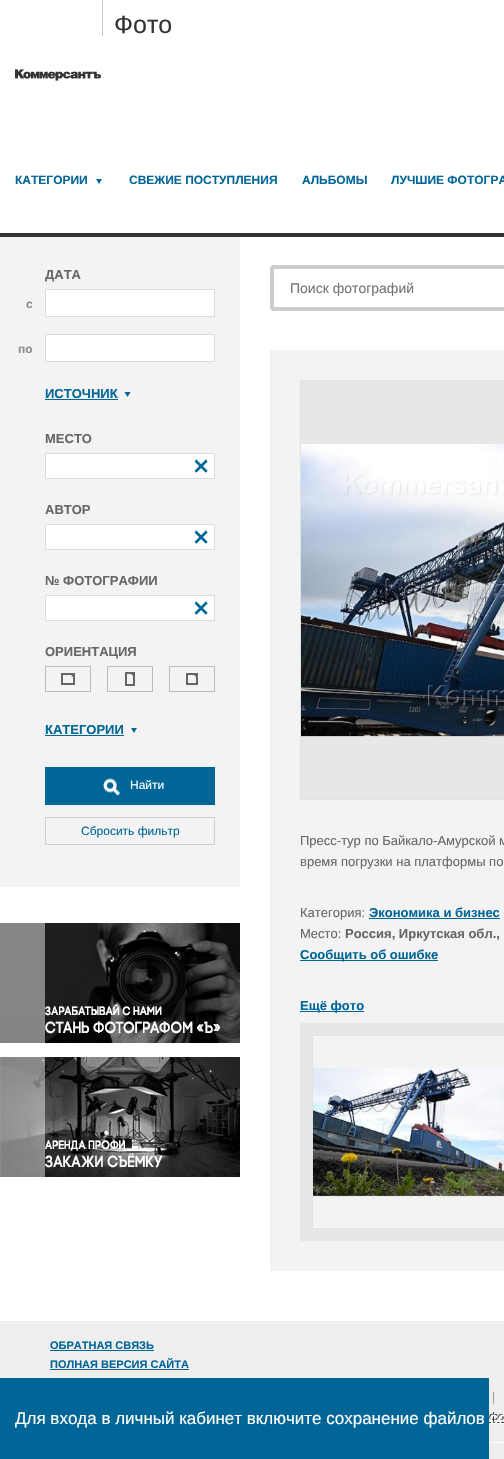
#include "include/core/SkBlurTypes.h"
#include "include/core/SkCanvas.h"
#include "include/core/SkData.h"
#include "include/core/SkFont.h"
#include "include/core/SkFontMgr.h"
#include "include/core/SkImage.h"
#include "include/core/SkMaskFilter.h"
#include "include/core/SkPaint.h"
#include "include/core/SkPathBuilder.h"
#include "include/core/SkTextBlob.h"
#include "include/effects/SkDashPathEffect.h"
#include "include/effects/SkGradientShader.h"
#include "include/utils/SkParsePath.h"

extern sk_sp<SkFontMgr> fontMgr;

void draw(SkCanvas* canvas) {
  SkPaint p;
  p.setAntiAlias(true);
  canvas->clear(SK_ColorWHITE);
  p.setColor(SkColorSetRGB(201, 201, 201));
  canvas->drawRect(SkRect::MakeLTRB(102, 0, 103, 36), p);
  canvas->drawImageRect(SkImages::DeferredFromEncodedData(SkData::MakeFromFileName("images/1.png")), SkRect::MakeLTRB(15, 69, 101, 81), SkSamplingOptions());
  p.setColor(SkColorSetRGB(0, 102, 151));
  canvas->drawPath(SkPathBuilder().moveTo(96, 179).lineTo(102, 179).lineTo(99, 184).close().detach(), p);
  p.setColor(SkColorSetRGB(51, 51, 51));
  canvas->drawRect(SkRect::MakeLTRB(0, 233, 504, 237), p);
  p.setColor(SkColorSetRGB(243, 243, 243));
  canvas->drawRect(SkRect::MakeLTRB(0, 237, 240, 887), p);
  p.setColor(SK_ColorWHITE);
  canvas->drawRect(SkRect::MakeLTRB(45.5f, 289.5f, 214.5f, 316.5f), p);
  p.setStyle(SkPaint::kStroke_Style);
  p.setStrokeWidth(1);
  p.setColor(SkColorSetRGB(220, 220, 220));
  canvas->drawRect(SkRect::MakeLTRB(45.5f, 289.5f, 214.5f, 316.5f), p);
  p.setStyle(SkPaint::kFill_Style);
  p.setColor(SK_ColorWHITE);
  canvas->drawRect(SkRect::MakeLTRB(45.5f, 334.5f, 214.5f, 361.5f), p);
  p.setStyle(SkPaint::kStroke_Style);
  p.setColor(SkColorSetRGB(220, 220, 220));
  canvas->drawRect(SkRect::MakeLTRB(45.5f, 334.5f, 214.5f, 361.5f), p);
  p.setStyle(SkPaint::kFill_Style);
  p.setColor(SkColorSetRGB(0, 102, 151));
  canvas->drawRect(SkRect::MakeLTRB(45, 399, 118, 400), p);
  canvas->drawPath(SkPathBuilder().moveTo(124.5f, 392).lineTo(130.5f, 392).lineTo(127.5f, 397).close().detach(), p);
  p.setColor(SK_ColorWHITE);
  canvas->drawRect(SkRect::MakeLTRB(45.5f, 453.5f, 214.5f, 478.5f), p);
  p.setStyle(SkPaint::kStroke_Style);
  p.setColor(SkColorSetRGB(220, 220, 220));
  canvas->drawRect(SkRect::MakeLTRB(45.5f, 453.5f, 214.5f, 478.5f), p);
  canvas->drawImageRect(SkImages::DeferredFromEncodedData(SkData::MakeFromFileName("images/2.png")), SkRect::MakeLTRB(194, 459, 208, 473), SkSamplingOptions());
  p.setStyle(SkPaint::kFill_Style);
  p.setColor(SK_ColorWHITE);
  canvas->drawRect(SkRect::MakeLTRB(45.5f, 524.5f, 214.5f, 549.5f), p);
  p.setStyle(SkPaint::kStroke_Style);
  p.setColor(SkColorSetRGB(220, 220, 220));
  canvas->drawRect(SkRect::MakeLTRB(45.5f, 524.5f, 214.5f, 549.5f), p);
  canvas->drawImageRect(SkImages::DeferredFromEncodedData(SkData::MakeFromFileName("images/2.png")), SkRect::MakeLTRB(194, 530, 208, 544), SkSamplingOptions());
  p.setStyle(SkPaint::kFill_Style);
  p.setColor(SK_ColorWHITE);
  canvas->drawRect(SkRect::MakeLTRB(45.5f, 595.5f, 214.5f, 620.5f), p);
  p.setStyle(SkPaint::kStroke_Style);
  p.setColor(SkColorSetRGB(220, 220, 220));
  canvas->drawRect(SkRect::MakeLTRB(45.5f, 595.5f, 214.5f, 620.5f), p);
  canvas->drawImageRect(SkImages::DeferredFromEncodedData(SkData::MakeFromFileName("images/2.png")), SkRect::MakeLTRB(194, 601, 208, 615), SkSamplingOptions());
  p.setColor(SkColorSetRGB(187, 187, 187));
  canvas->drawRect(SkRect::MakeLTRB(45.5f, 666.5f, 90.5f, 691.5f), p);
  canvas->drawImageRect(SkImages::DeferredFromEncodedData(SkData::MakeFromFileName("images/3.png")), SkRect::MakeLTRB(61, 673, 75, 685), SkSamplingOptions());
  canvas->drawRect(SkRect::MakeLTRB(107.5f, 666.5f, 152.5f, 691.5f), p);
  canvas->drawImageRect(SkImages::DeferredFromEncodedData(SkData::MakeFromFileName("images/4.png")), SkRect::MakeLTRB(125, 672, 135, 686), SkSamplingOptions());
  canvas->drawRect(SkRect::MakeLTRB(169.5f, 666.5f, 214.5f, 691.5f), p);
  canvas->drawImageRect(SkImages::DeferredFromEncodedData(SkData::MakeFromFileName("images/5.png")), SkRect::MakeLTRB(186, 673, 198, 685), SkSamplingOptions());
  p.setStyle(SkPaint::kFill_Style);
  p.setColor(SkColorSetRGB(0, 102, 151));
  canvas->drawRect(SkRect::MakeLTRB(45, 735, 124, 736), p);
  canvas->drawPath(SkPathBuilder().moveTo(131, 728).lineTo(137, 728).lineTo(134, 733).close().detach(), p);
  canvas->drawRect(SkRect::MakeLTRB(45, 767, 215, 805), p);
  canvas->drawImageRect(SkImages::DeferredFromEncodedData(SkData::MakeFromFileName("images/6.png")), SkRect::MakeLTRB(103, 778, 120, 796), SkSamplingOptions());
  p.setStyle(SkPaint::kStroke_Style);
  p.setColor(SkColorSetRGB(207, 207, 207));
  canvas->drawRect(SkRect::MakeLTRB(45.5f, 817.5f, 214.5f, 844.5f), p);
  canvas->drawImageRect(SkImages::DeferredFromEncodedData(SkData::MakeFromFileName("images/7.png")), SkRect::MakeLTRB(0, 923, 240, 1043), SkSamplingOptions());
  canvas->drawImageRect(SkImages::DeferredFromEncodedData(SkData::MakeFromFileName("images/8.png")), SkRect::MakeLTRB(0, 1057, 240, 1177), SkSamplingOptions());
  p.setStrokeWidth(4);
  p.setColor(SkColorSetRGB(204, 204, 204));
  canvas->drawRoundRect(SkRect::MakeLTRB(272, 267, 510, 309), 2, 2, p);
  p.setStyle(SkPaint::kFill_Style);
  p.setColor(SkColorSetRGB(243, 243, 243));
  canvas->drawRect(SkRect::MakeLTRB(270, 350, 504, 1271), p);
  p.setColor(SkColorSetRGB(231, 231, 231));
  canvas->drawRect(SkRect::MakeLTRB(300.5f, 380.5f, 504.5f, 799.5f), p);
  p.setStyle(SkPaint::kStroke_Style);
  p.setStrokeWidth(1);
  p.setColor(SkColorSetRGB(226, 226, 226));
  canvas->drawRect(SkRect::MakeLTRB(300.5f, 380.5f, 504.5f, 799.5f), p);
  canvas->drawImageRect(SkImages::DeferredFromEncodedData(SkData::MakeFromFileName("images/9.png")), SkRect::MakeLTRB(301, 444, 504, 737), SkSamplingOptions());
  p.setStyle(SkPaint::kFill_Style);
  p.setColor(SkColorSetRGB(0, 102, 151));
  canvas->drawRect(SkRect::MakeLTRB(369, 918, 500, 919), p);
  canvas->drawRect(SkRect::MakeLTRB(300, 960, 438, 961), p);
  canvas->drawRect(SkRect::MakeLTRB(300, 1011, 364, 1012), p);
  p.setColor(SkColorSetRGB(231, 231, 231));
  canvas->drawRect(SkRect::MakeLTRB(300, 1023, 504, 1241), p);
  p.setColor(SkColorSetRGB(243, 243, 243));
  canvas->drawRect(SkRect::MakeLTRB(312.5f, 1035.5f, 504.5f, 1228.5f), p);
  p.setStyle(SkPaint::kStroke_Style);
  p.setColor(SkColorSetRGB(226, 226, 226));
  canvas->drawRect(SkRect::MakeLTRB(312.5f, 1035.5f, 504.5f, 1228.5f), p);
  canvas->drawImageRect(SkImages::DeferredFromEncodedData(SkData::MakeFromFileName("images/10.png")), SkRect::MakeLTRB(313, 1068, 504, 1197), SkSamplingOptions());
  p.setStyle(SkPaint::kFill_Style);
  p.setColor(SkColorSetRGB(238, 238, 238));
  canvas->drawRect(SkRect::MakeLTRB(0, 1321, 504, 1459), p);
  p.setColor(SK_ColorWHITE);
  canvas->drawRect(SkRect::MakeLTRB(489, 1442, 504, 1443), p);
  p.setColor(SkColorSetRGB(0, 102, 151));
  canvas->drawRect(SkRect::MakeLTRB(50, 1350, 154, 1351), p);
  canvas->drawRect(SkRect::MakeLTRB(50, 1369, 189, 1370), p);
  p.setColor(SkColorSetRGB(51, 51, 51));
  canvas->drawRect(SkRect::MakeLTRB(489, 1422, 504, 1423), p);
  p.setColor(SkColorSetRGB(0, 102, 151));
  canvas->drawRect(SkRect::MakeLTRB(0, 1378, 489, 1459), p);
  SkFont font1(fontMgr->matchFamilyStyle("Liberation Sans", SkFontStyle::Normal()), 25);
  font1.setSubpixel(true);
  p.setColor(SkColorSetRGB(51, 51, 51));
  canvas->drawString("Фото", 114, 33, font1, p);
  SkFont font2(fontMgr->matchFamilyStyle("Liberation Sans", SkFontStyle::Bold()), 12);
  font2.setSubpixel(true);
  p.setColor(SkColorSetRGB(0, 102, 151));
  canvas->drawString("КАТЕГОРИИ", 15, 184, font2, p);
  canvas->drawString("СВЕЖИЕ ПОСТУПЛЕНИЯ", 129, 184, font2, p);
  canvas->drawString("АЛЬБОМЫ", 302, 184, font2, p);
  canvas->drawString("ЛУЧШИЕ ФОТОГРА", 391, 184, font2, p);
  SkFont font3(fontMgr->matchFamilyStyle("Liberation Sans", SkFontStyle::Bold()), 13);
  font3.setSubpixel(true);
  p.setColor(SkColorSetRGB(102, 102, 102));
  canvas->drawString("ДАТА", 45, 279, font3, p);
  p.setColor(SkColorSetRGB(140, 140, 140));
  canvas->drawString("с", 26, 308, font2, p);
  canvas->drawString("по", 18, 353, font2, p);
  p.setColor(SkColorSetRGB(0, 102, 151));
  canvas->drawString("ИСТОЧНИК", 45, 398, font3, p);
  p.setColor(SkColorSetRGB(102, 102, 102));
  canvas->drawString("МЕСТО", 45, 443, font3, p);
  canvas->drawString("АВТОР", 45, 514, font3, p);
  canvas->drawString("№ ФОТОГРАФИИ", 45, 585, font3, p);
  canvas->drawString("ОРИЕНТАЦИЯ", 45, 656, font3, p);
  p.setColor(SkColorSetRGB(0, 102, 151));
  canvas->drawString("КАТЕГОРИИ", 45, 734, font3, p);
  SkFont font4(fontMgr->matchFamilyStyle("Liberation Sans", SkFontStyle::Normal()), 12);
  font4.setSubpixel(true);
  p.setColor(SK_ColorWHITE);
  canvas->drawString("Найти", 130, 789, font4, p);
  p.setColor(SkColorSetRGB(0, 102, 151));
  canvas->drawString("Сбросить фильтр", 81, 835, font4, p);
  SkFont font5(fontMgr->matchFamilyStyle("Liberation Sans", SkFontStyle::Normal()), 14);
  font5.setSubpixel(true);
  p.setColor(SkColorSetRGB(117, 117, 117));
  canvas->drawString("Поиск фотографий", 290, 293, font5, p);
  SkFont font6(fontMgr->matchFamilyStyle("Liberation Sans", SkFontStyle::Normal()), 13);
  font6.setSubpixel(true);
  p.setColor(SkColorSetRGB(102, 102, 102));
  canvas->drawString("Пресс-тур по Байкало-Амурской м", 300, 845, font6, p);
  canvas->drawString("время погрузки на платформы по", 300, 866, font6, p);
  canvas->drawString("Категория:", 300, 917, font6, p);
  p.setColor(SkColorSetRGB(0, 102, 151));
  canvas->drawString("Экономика и бизнес", 369, 917, font3, p);
  p.setColor(SkColorSetRGB(102, 102, 102));
  canvas->drawString("Место:", 300, 938, font6, p);
  canvas->drawString("Россия, Иркутская обл.,", 345, 938, font3, p);
  p.setColor(SkColorSetRGB(0, 102, 151));
  canvas->drawString("Сообщить об ошибке", 300, 959, font3, p);
  canvas->drawString("Ещё фото", 300, 1010, font3, p);
  SkFont font7(fontMgr->matchFamilyStyle("Liberation Sans", SkFontStyle::Bold()), 11);
  font7.setSubpixel(true);
  canvas->drawString("ОБРАТНАЯ СВЯЗЬ", 50, 1349, font7, p);
  canvas->drawString("ПОЛНАЯ ВЕРСИЯ САЙТА", 50, 1368, font7, p);
  p.setColor(SkColorSetRGB(153, 153, 153));
  canvas->drawString("|", 492, 1401, font4, p);
  SkFont font8(fontMgr->matchFamilyStyle("Liberation Sans", SkFontStyle::Normal()), 11);
  font8.setSubpixel(true);
  p.setColor(SkColorSetRGB(51, 51, 51));
  canvas->drawString("фо", 489, 1420, font8, p);
  SkFont font9(fontMgr->matchFamilyStyle("Liberation Sans", SkFontStyle::Normal()), 17);
  font9.setSubpixel(true);
  p.setColor(SK_ColorWHITE);
  canvas->drawString("Для входа в личный кабинет включите сохранение файлов co", 15, 1424, font9, p);
}
